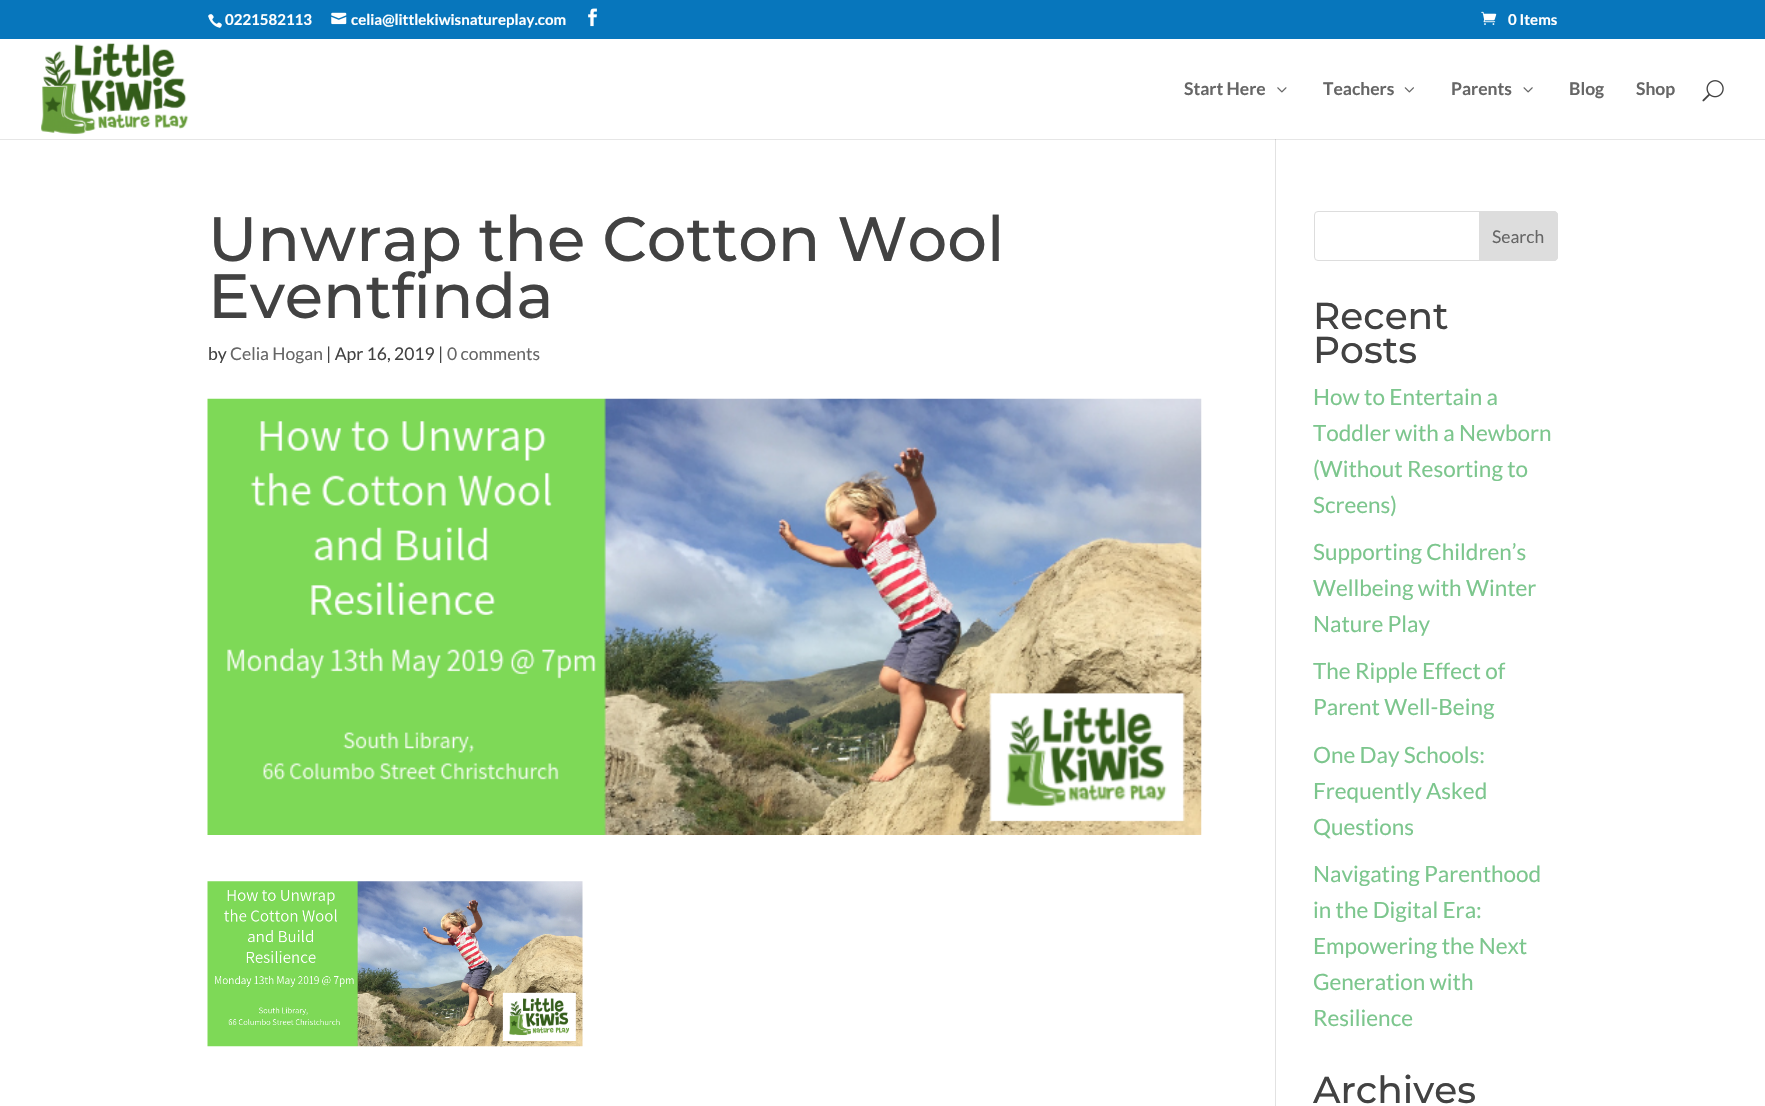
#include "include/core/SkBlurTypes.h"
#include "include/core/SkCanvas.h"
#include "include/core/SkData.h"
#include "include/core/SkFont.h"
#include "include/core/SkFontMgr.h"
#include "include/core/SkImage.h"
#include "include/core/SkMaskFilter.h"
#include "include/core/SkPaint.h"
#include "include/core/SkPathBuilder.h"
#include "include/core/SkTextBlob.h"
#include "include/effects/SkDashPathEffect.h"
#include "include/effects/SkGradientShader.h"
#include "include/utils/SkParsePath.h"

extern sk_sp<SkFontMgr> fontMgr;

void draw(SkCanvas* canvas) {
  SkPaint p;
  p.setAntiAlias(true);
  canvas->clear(SK_ColorWHITE);
  p.setColor(SkColorSetRGB(230, 230, 230));
  canvas->drawRect(SkRect::MakeLTRB(0, 139, 1765, 140), p);
  p.setColor(SkColorSetRGB(7, 118, 188));
  canvas->drawRect(SkRect::MakeLTRB(0, 0, 1765, 39), p);
  canvas->drawImageRect(SkImages::DeferredFromEncodedData(SkData::MakeFromFileName("images/1.png")), SkRect::MakeLTRB(208, 14, 222, 28), SkSamplingOptions());
  canvas->drawImageRect(SkImages::DeferredFromEncodedData(SkData::MakeFromFileName("images/2.png")), SkRect::MakeLTRB(331, 12, 347, 25), SkSamplingOptions());
  canvas->drawImageRect(SkImages::DeferredFromEncodedData(SkData::MakeFromFileName("images/3.png")), SkRect::MakeLTRB(588, 8, 597, 27), SkSamplingOptions());
  canvas->drawImageRect(SkImages::DeferredFromEncodedData(SkData::MakeFromFileName("images/4.png")), SkRect::MakeLTRB(1481, 11, 1497, 25), SkSamplingOptions());
  canvas->drawImageRect(SkImages::DeferredFromEncodedData(SkData::MakeFromFileName("images/5.png")), SkRect::MakeLTRB(41, 43, 189, 134), SkSamplingOptions());
  canvas->drawImageRect(SkImages::DeferredFromEncodedData(SkData::MakeFromFileName("images/6.png")), SkRect::MakeLTRB(1277, 87, 1287, 93), SkSamplingOptions());
  canvas->drawImageRect(SkImages::DeferredFromEncodedData(SkData::MakeFromFileName("images/7.png")), SkRect::MakeLTRB(1404, 87, 1414, 93), SkSamplingOptions());
  canvas->drawImageRect(SkImages::DeferredFromEncodedData(SkData::MakeFromFileName("images/8.png")), SkRect::MakeLTRB(1523, 87, 1533, 93), SkSamplingOptions());
  canvas->drawImageRect(SkImages::DeferredFromEncodedData(SkData::MakeFromFileName("images/9.png")), SkRect::MakeLTRB(1702, 80, 1724, 102), SkSamplingOptions());
  p.setColor(SkColorSetRGB(226, 226, 226));
  canvas->drawRect(SkRect::MakeLTRB(1275, 139, 1276, 1106), p);
  p.setColor(SkColorSetRGB(203, 203, 203));
  canvas->drawRect(SkRect::MakeLTRB(1275, 139, 1276, 140), p);
  canvas->drawImageRect(SkImages::DeferredFromEncodedData(SkData::MakeFromFileName("images/10.png")), SkRect::MakeLTRB(207, 398, 1202, 835), SkSamplingOptions());
  canvas->drawImageRect(SkImages::DeferredFromEncodedData(SkData::MakeFromFileName("images/11.png")), SkRect::MakeLTRB(207, 881, 583, 1047), SkSamplingOptions());
  p.setStyle(SkPaint::kStroke_Style);
  p.setStrokeWidth(1);
  p.setColor(SkColorSetRGB(221, 221, 221));
  canvas->drawRoundRect(SkRect::MakeLTRB(1314.5f, 211.5f, 1557.5f, 260.5f), 3.5f, 3.5f, p);
  p.setStyle(SkPaint::kFill_Style);
  canvas->drawPath(SkPathBuilder().moveTo(1479.5f, 211.5f).lineTo(1554, 211.5f).cubicTo(1556, 211.5f, 1557.5f, 213, 1557.5f, 215).lineTo(1557.5f, 257).cubicTo(1557.5f, 259, 1556, 260.5f, 1554, 260.5f).lineTo(1479.5f, 260.5f).close().detach(), p);
  p.setStyle(SkPaint::kStroke_Style);
  canvas->drawPath(SkPathBuilder().moveTo(1479.5f, 211.5f).lineTo(1554, 211.5f).cubicTo(1556, 211.5f, 1557.5f, 213, 1557.5f, 215).lineTo(1557.5f, 257).cubicTo(1557.5f, 259, 1556, 260.5f, 1554, 260.5f).lineTo(1479.5f, 260.5f).close().detach(), p);
  SkFont font1(fontMgr->matchFamilyStyle("Lato", SkFontStyle::Bold()), 15);
  font1.setSubpixel(true);
  p.setStyle(SkPaint::kFill_Style);
  p.setColor(SK_ColorWHITE);
  canvas->drawString("0221582113", 225, 25, font1, p);
  canvas->drawString("celia@littlekiwisnatureplay.com", 351, 25, font1, p);
  canvas->drawString("0 Items", 1508, 25, font1, p);
  SkFont font2(fontMgr->matchFamilyStyle("Lato", SkFontStyle::Bold()), 17.5f);
  font2.setSubpixel(true);
  p.setColor(SkColorSetRGB(102, 102, 102));
  canvas->drawString("Start Here", 1184, 95, font2, p);
  canvas->drawString("Teachers", 1323, 95, font2, p);
  canvas->drawString("Parents", 1451, 95, font2, p);
  canvas->drawString("Blog", 1569, 95, font2, p);
  canvas->drawString("Shop", 1636, 95, font2, p);
  SkFont font3(fontMgr->matchFamilyStyle("Montserrat", SkFontStyle(100, SkFontStyle::kNormal_Width, SkFontStyle::kUpright_Slant)), 62.5f);
  font3.setSubpixel(true);
  p.setColor(SkColorSetRGB(66, 66, 66));
  canvas->drawString("Unwrap the Cotton Wool", 208, 261, font3, p);
  canvas->drawString("Eventfinda", 208, 318, font3, p);
  SkFont font4(fontMgr->matchFamilyStyle("Lato", SkFontStyle::Normal()), 17.5f);
  font4.setSubpixel(true);
  canvas->drawString("by", 208, 360, font4, p);
  p.setColor(SkColorSetRGB(102, 102, 102));
  canvas->drawString("Celia Hogan", 230, 360, font4, p);
  p.setColor(SkColorSetRGB(66, 66, 66));
  canvas->drawString("| Apr 16, 2019 |", 326, 360, font4, p);
  p.setColor(SkColorSetRGB(102, 102, 102));
  canvas->drawString("0 comments", 447, 360, font4, p);
  canvas->drawString("Search", 1492, 243, font4, p);
  SkFont font5(fontMgr->matchFamilyStyle("Montserrat", SkFontStyle(100, SkFontStyle::kNormal_Width, SkFontStyle::kUpright_Slant)), 37.5f);
  font5.setSubpixel(true);
  p.setColor(SkColorSetRGB(66, 66, 66));
  canvas->drawString("Recent", 1313, 329, font5, p);
  canvas->drawString("Posts", 1313, 363, font5, p);
  SkFont font6(fontMgr->matchFamilyStyle("Lato", SkFontStyle::Normal()), 22.5f);
  font6.setSubpixel(true);
  p.setColor(SkColorSetRGB(124, 198, 141));
  canvas->drawString("How to Entertain a", 1313, 405, font6, p);
  canvas->drawString("Toddler with a Newborn", 1313, 441, font6, p);
  canvas->drawString("(Without Resorting to", 1313, 477, font6, p);
  canvas->drawString("Screens)", 1313, 513, font6, p);
  canvas->drawString("Supporting Children’s", 1313, 560, font6, p);
  canvas->drawString("Wellbeing with Winter", 1313, 596, font6, p);
  canvas->drawString("Nature Play", 1313, 632, font6, p);
  canvas->drawString("The Ripple Effect of", 1313, 679, font6, p);
  canvas->drawString("Parent Well-Being", 1313, 715, font6, p);
  canvas->drawString("One Day Schools:", 1313, 763, font6, p);
  canvas->drawString("Frequently Asked", 1313, 799, font6, p);
  canvas->drawString("Questions", 1313, 835, font6, p);
  canvas->drawString("Navigating Parenthood", 1313, 882, font6, p);
  canvas->drawString("in the Digital Era:", 1313, 918, font6, p);
  canvas->drawString("Empowering the Next", 1313, 954, font6, p);
  canvas->drawString("Generation with", 1313, 990, font6, p);
  canvas->drawString("Resilience", 1313, 1026, font6, p);
  p.setColor(SkColorSetRGB(66, 66, 66));
  canvas->drawString("Archives", 1313, 1103, font5, p);
}
